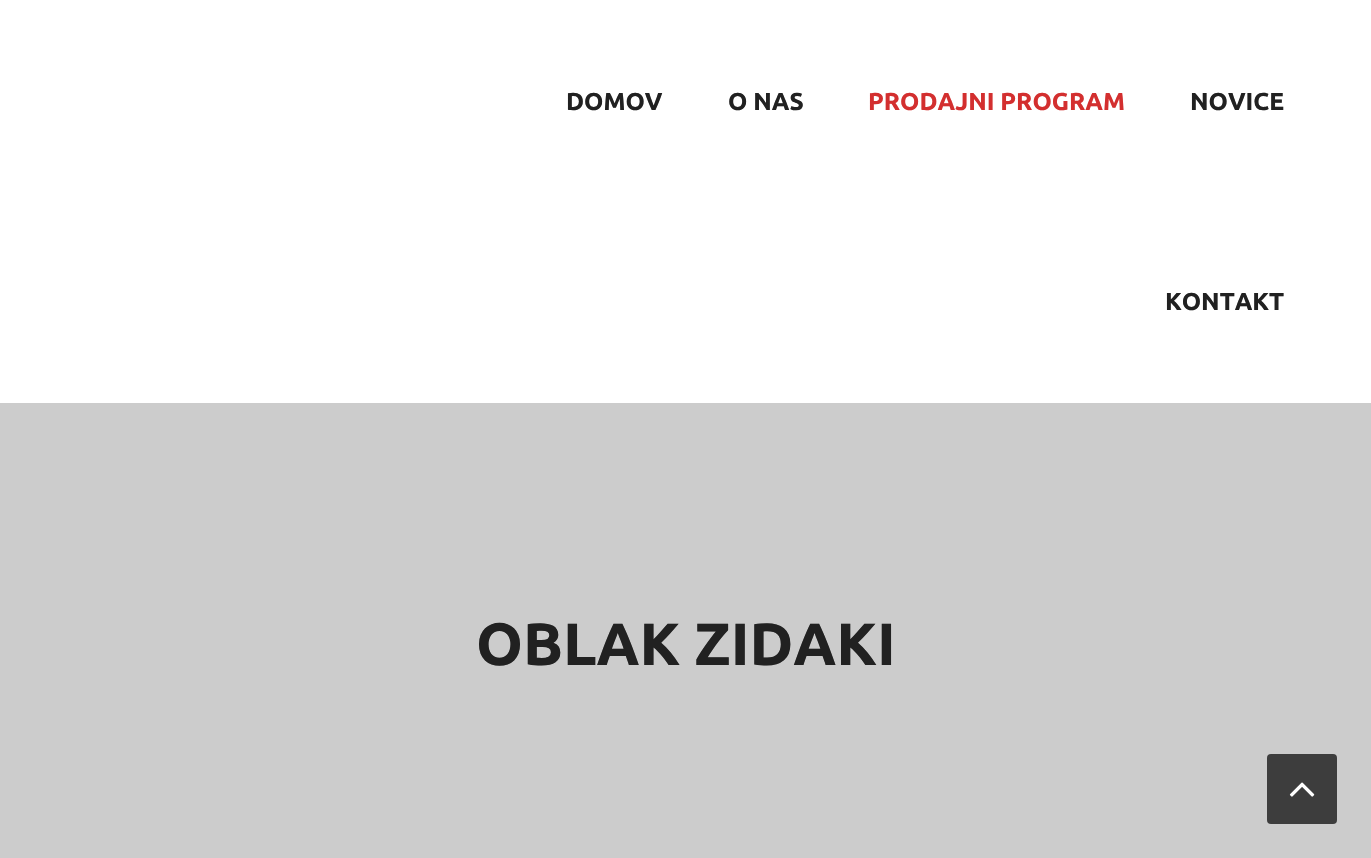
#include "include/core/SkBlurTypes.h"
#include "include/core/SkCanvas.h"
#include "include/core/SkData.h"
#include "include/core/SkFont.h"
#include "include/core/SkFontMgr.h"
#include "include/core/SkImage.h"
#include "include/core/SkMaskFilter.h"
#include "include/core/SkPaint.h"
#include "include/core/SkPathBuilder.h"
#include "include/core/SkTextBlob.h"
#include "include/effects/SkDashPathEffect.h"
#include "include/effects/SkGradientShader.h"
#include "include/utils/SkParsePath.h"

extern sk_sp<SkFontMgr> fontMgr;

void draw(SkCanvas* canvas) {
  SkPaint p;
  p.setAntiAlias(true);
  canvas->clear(SK_ColorWHITE);
  p.setColor(SkColorSetRGB(204, 204, 204));
  canvas->drawRect(SkRect::MakeLTRB(0, 403, 1371, 858), p);
  p.setColor(SkColorSetRGB(61, 61, 61));
  canvas->drawRoundRect(SkRect::MakeLTRB(1267, 754, 1337, 824), 4, 4, p);
  canvas->drawImageRect(SkImages::DeferredFromEncodedData(SkData::MakeFromFileName("images/1.png")), SkRect::MakeLTRB(1289, 782, 1315, 797), SkSamplingOptions());
  SkFont font1(fontMgr->matchFamilyStyle("Ubuntu", SkFontStyle::Bold()), 24.5f);
  font1.setSubpixel(true);
  p.setColor(SkColorSetRGB(33, 33, 33));
  canvas->drawString("DOMOV", 566, 110, font1, p);
  canvas->drawString("O NAS", 728, 110, font1, p);
  p.setColor(SkColorSetRGB(211, 47, 47));
  canvas->drawString("PRODAJNI PROGRAM", 868, 110, font1, p);
  p.setColor(SkColorSetRGB(33, 33, 33));
  canvas->drawString("NOVICE", 1190, 110, font1, p);
  canvas->drawString("KONTAKT", 1165, 310, font1, p);
  SkFont font2(fontMgr->matchFamilyStyle("Ubuntu", SkFontStyle::Bold()), 59.5f);
  font2.setSubpixel(true);
  canvas->drawString("OBLAK ZIDAKI", 476, 665, font2, p);
}
